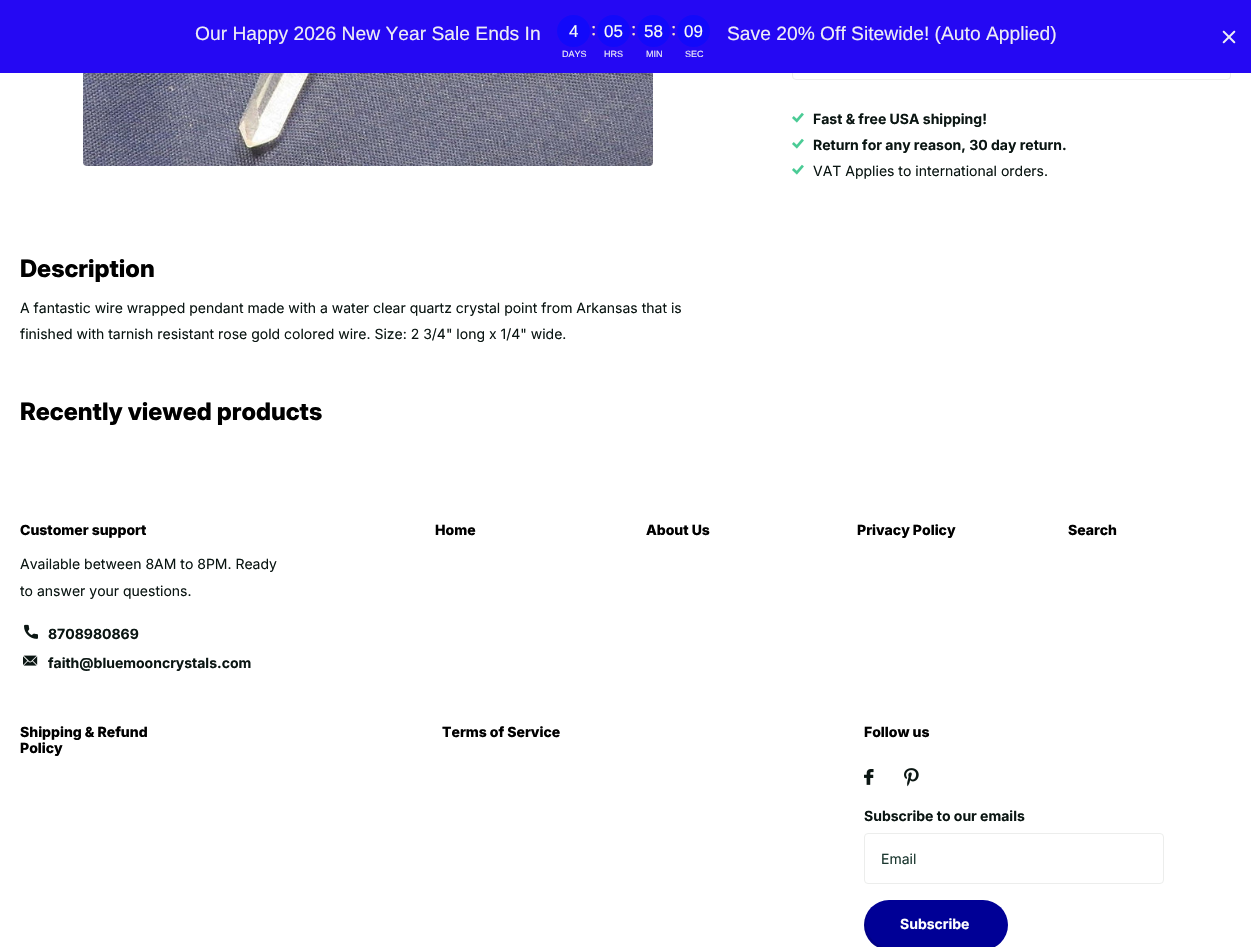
#include "include/core/SkBlurTypes.h"
#include "include/core/SkCanvas.h"
#include "include/core/SkData.h"
#include "include/core/SkFont.h"
#include "include/core/SkFontMgr.h"
#include "include/core/SkImage.h"
#include "include/core/SkMaskFilter.h"
#include "include/core/SkPaint.h"
#include "include/core/SkPathBuilder.h"
#include "include/core/SkTextBlob.h"
#include "include/effects/SkDashPathEffect.h"
#include "include/effects/SkGradientShader.h"
#include "include/utils/SkParsePath.h"

extern sk_sp<SkFontMgr> fontMgr;

void draw(SkCanvas* canvas) {
  SkPaint p;
  p.setAntiAlias(true);
  canvas->clear(SK_ColorWHITE);
  p.setStyle(SkPaint::kStroke_Style);
  p.setStrokeWidth(1);
  p.setColor(SkColorSetRGB(236, 237, 236));
  canvas->drawRoundRect(SkRect::MakeLTRB(792.5f, 19.5f, 1230.5f, 79.5f), 3.5f, 3.5f, p);
  p.setStyle(SkPaint::kFill_Style);
  p.setColor(SkColorSetRGB(37, 8, 243));
  canvas->drawRect(SkRect::MakeLTRB(0, 0, 1251, 73), p);
  p.setColor(SkColorSetRGB(18, 9, 250));
  canvas->drawRoundRect(SkRect::MakeLTRB(557, 15, 590, 47), 16, 16, p);
  canvas->drawRoundRect(SkRect::MakeLTRB(597, 15, 630, 47), 16, 16, p);
  canvas->drawRoundRect(SkRect::MakeLTRB(637, 15, 670, 47), 16, 16, p);
  canvas->drawRoundRect(SkRect::MakeLTRB(677, 15, 710, 47), 16, 16, p);
  canvas->drawImageRect(SkImages::DeferredFromEncodedData(SkData::MakeFromFileName("images/1.png")), SkRect::MakeLTRB(1222, 30, 1236, 44), SkSamplingOptions());
  canvas->drawImageRect(SkImages::DeferredFromEncodedData(SkData::MakeFromFileName("images/2.png")), SkRect::MakeLTRB(792, 112, 804, 123), SkSamplingOptions());
  canvas->drawImageRect(SkImages::DeferredFromEncodedData(SkData::MakeFromFileName("images/2.png")), SkRect::MakeLTRB(792, 138, 804, 149), SkSamplingOptions());
  canvas->drawImageRect(SkImages::DeferredFromEncodedData(SkData::MakeFromFileName("images/2.png")), SkRect::MakeLTRB(792, 164, 804, 175), SkSamplingOptions());
  canvas->drawImageRect(SkImages::DeferredFromEncodedData(SkData::MakeFromFileName("images/3.png")), SkRect::MakeLTRB(83, 73, 653, 166), SkSamplingOptions());
  canvas->drawImageRect(SkImages::DeferredFromEncodedData(SkData::MakeFromFileName("images/4.png")), SkRect::MakeLTRB(24, 624, 38, 639), SkSamplingOptions());
  canvas->drawImageRect(SkImages::DeferredFromEncodedData(SkData::MakeFromFileName("images/5.png")), SkRect::MakeLTRB(23, 655, 38, 666), SkSamplingOptions());
  canvas->drawImageRect(SkImages::DeferredFromEncodedData(SkData::MakeFromFileName("images/6.png")), SkRect::MakeLTRB(864, 769, 874, 785), SkSamplingOptions());
  canvas->drawImageRect(SkImages::DeferredFromEncodedData(SkData::MakeFromFileName("images/7.png")), SkRect::MakeLTRB(904, 768, 919, 787), SkSamplingOptions());
  p.setStyle(SkPaint::kStroke_Style);
  p.setColor(SkColorSetRGB(236, 237, 236));
  canvas->drawRoundRect(SkRect::MakeLTRB(864.5f, 833.5f, 1163.5f, 883.5f), 3.5f, 3.5f, p);
  p.setStyle(SkPaint::kFill_Style);
  p.setColor(SkColorSetRGB(0, 0, 150));
  canvas->drawRoundRect(SkRect::MakeLTRB(864, 900, 1008, 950), 25, 25, p);
  p.setColor(SkColorSetARGB(26, 0, 0, 0));
  canvas->drawPath(SkPathBuilder().moveTo(872, 907).cubicTo(867, 912, 864, 918, 864, 925).cubicTo(864, 939, 875, 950, 889, 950).lineTo(983, 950).cubicTo(990, 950, 996, 947, 1001, 942).cubicTo(997, 946, 991, 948, 985, 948).lineTo(891, 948).cubicTo(877, 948, 866, 937, 866, 923).cubicTo(866, 917, 868, 911, 872, 907).close().detach(), p);
  SkFont font1(fontMgr->matchFamilyStyle("Liberation Sans", SkFontStyle::Normal()), 19.25f);
  font1.setSubpixel(true);
  p.setColor(SkColorSetRGB(238, 237, 246));
  canvas->drawString("Our Happy 2026 New Year Sale Ends In", 195, 40, font1, p);
  SkFont font2(fontMgr->matchFamilyStyle("Liberation Sans", SkFontStyle::Normal()), 17);
  font2.setSubpixel(true);
  p.setColor(SkColorSetRGB(247, 253, 247));
  canvas->drawString("4", 569, 37, font2, p);
  SkFont font3(fontMgr->matchFamilyStyle("Liberation Serif", SkFontStyle::Normal()), 19.25f);
  font3.setSubpixel(true);
  p.setColor(SkColorSetRGB(255, 227, 201));
  canvas->drawString(":", 591, 35, font3, p);
  p.setColor(SkColorSetRGB(247, 253, 247));
  canvas->drawString("05", 604, 37, font2, p);
  p.setColor(SkColorSetRGB(255, 227, 201));
  canvas->drawString(":", 631, 35, font3, p);
  p.setColor(SkColorSetRGB(247, 253, 247));
  canvas->drawString("58", 644, 37, font2, p);
  p.setColor(SkColorSetRGB(255, 227, 201));
  canvas->drawString(":", 671, 35, font3, p);
  p.setColor(SkColorSetRGB(247, 253, 247));
  canvas->drawString("09", 684, 37, font2, p);
  SkFont font4(fontMgr->matchFamilyStyle("Liberation Sans", SkFontStyle::Normal()), 9);
  font4.setSubpixel(true);
  p.setColor(SkColorSetRGB(238, 237, 246));
  canvas->drawString("DAYS", 562, 57, font4, p);
  canvas->drawString("HRS", 604, 57, font4, p);
  canvas->drawString("MIN", 646, 57, font4, p);
  canvas->drawString("SEC", 685, 57, font4, p);
  canvas->drawString("Save 20% Off Sitewide! (Auto Applied)", 727, 40, font1, p);
  SkFont font5(fontMgr->matchFamilyStyle("Inter", SkFontStyle::Bold()), 14);
  font5.setSubpixel(true);
  p.setColor(SkColorSetRGB(11, 22, 19));
  canvas->drawString("Fast & free USA shipping!", 813, 124, font5, p);
  canvas->drawString("Return for any reason, 30 day return.", 813, 150, font5, p);
  SkFont font6(fontMgr->matchFamilyStyle("Inter", SkFontStyle::Normal()), 14);
  font6.setSubpixel(true);
  canvas->drawString("VAT Applies to international orders.", 813, 176, font6, p);
  SkFont font7(fontMgr->matchFamilyStyle("Inter", SkFontStyle(800, SkFontStyle::kNormal_Width, SkFontStyle::kUpright_Slant)), 24);
  font7.setSubpixel(true);
  p.setColor(SK_ColorBLACK);
  canvas->drawString("Description", 20, 277, font7, p);
  p.setColor(SkColorSetRGB(11, 22, 19));
  canvas->drawString("A fantastic wire wrapped pendant made with a water clear quartz crystal point from Arkansas that is", 20, 313, font6, p);
  canvas->drawString("finished with tarnish resistant rose gold colored wire. Size: 2 3/4\" long x 1/4\" wide.", 20, 339, font6, p);
  p.setColor(SK_ColorBLACK);
  canvas->drawString("Recently viewed products", 20, 420, font7, p);
  SkFont font8(fontMgr->matchFamilyStyle("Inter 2", SkFontStyle(800, SkFontStyle::kNormal_Width, SkFontStyle::kUpright_Slant)), 14);
  font8.setSubpixel(true);
  canvas->drawString("Customer support", 20, 535, font8, p);
  p.setColor(SkColorSetRGB(11, 22, 19));
  canvas->drawString("Available between 8AM to 8PM. Ready", 20, 569, font6, p);
  canvas->drawString("to answer your questions.", 20, 596, font6, p);
  canvas->drawString("8708980869", 48, 639, font5, p);
  canvas->drawString("faith@bluemooncrystals.com", 48, 668, font5, p);
  p.setColor(SK_ColorBLACK);
  canvas->drawString("Home", 435, 535, font8, p);
  canvas->drawString("About Us", 646, 535, font8, p);
  canvas->drawString("Privacy Policy", 857, 535, font8, p);
  canvas->drawString("Search", 1068, 535, font8, p);
  canvas->drawString("Shipping & Refund", 20, 737, font8, p);
  canvas->drawString("Policy", 20, 753, font8, p);
  canvas->drawString("Terms of Service", 442, 737, font8, p);
  canvas->drawString("Follow us", 864, 737, font8, p);
  p.setColor(SkColorSetRGB(11, 22, 19));
  canvas->drawString("Subscribe to our emails", 864, 821, font5, p);
  p.setColor(SkColorSetRGB(28, 56, 48));
  canvas->drawString("Email", 881, 864, font6, p);
  p.setColor(SK_ColorWHITE);
  canvas->drawString("Subscribe", 900, 929, font5, p);
}
